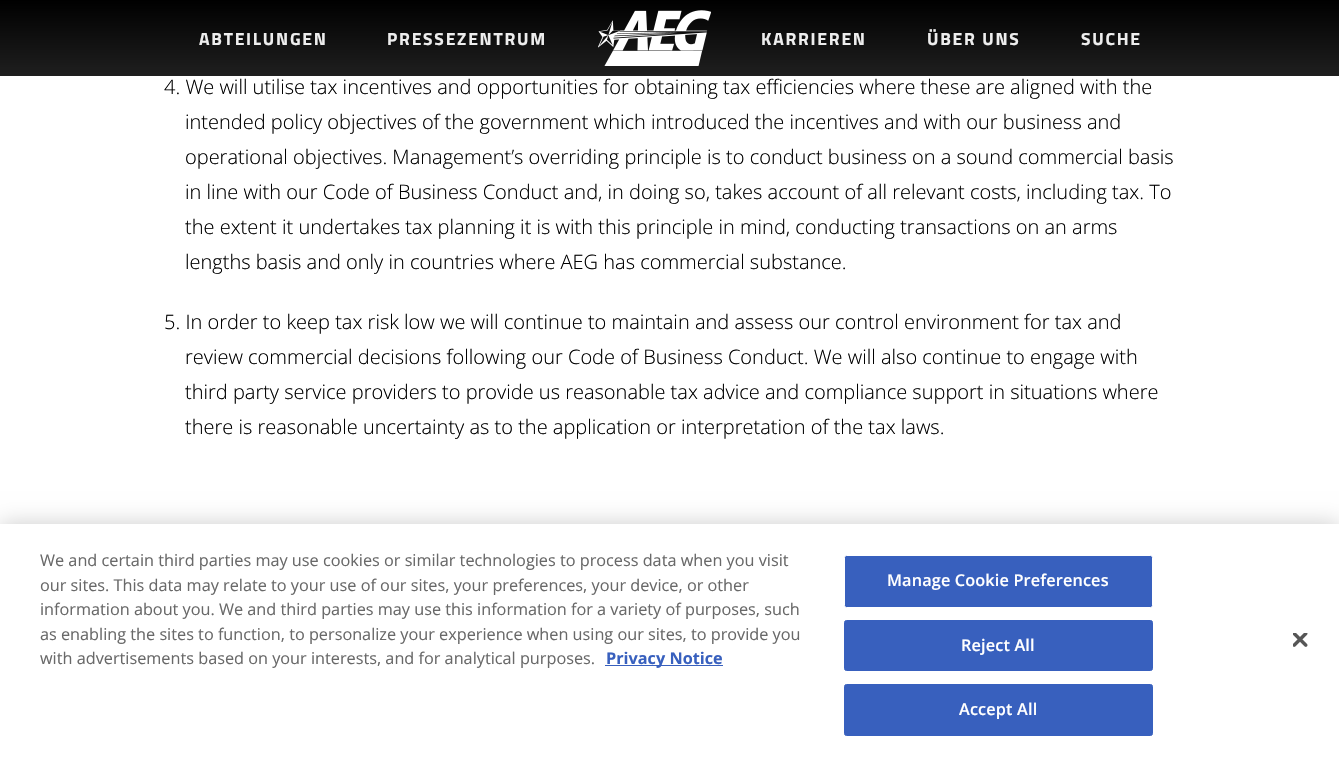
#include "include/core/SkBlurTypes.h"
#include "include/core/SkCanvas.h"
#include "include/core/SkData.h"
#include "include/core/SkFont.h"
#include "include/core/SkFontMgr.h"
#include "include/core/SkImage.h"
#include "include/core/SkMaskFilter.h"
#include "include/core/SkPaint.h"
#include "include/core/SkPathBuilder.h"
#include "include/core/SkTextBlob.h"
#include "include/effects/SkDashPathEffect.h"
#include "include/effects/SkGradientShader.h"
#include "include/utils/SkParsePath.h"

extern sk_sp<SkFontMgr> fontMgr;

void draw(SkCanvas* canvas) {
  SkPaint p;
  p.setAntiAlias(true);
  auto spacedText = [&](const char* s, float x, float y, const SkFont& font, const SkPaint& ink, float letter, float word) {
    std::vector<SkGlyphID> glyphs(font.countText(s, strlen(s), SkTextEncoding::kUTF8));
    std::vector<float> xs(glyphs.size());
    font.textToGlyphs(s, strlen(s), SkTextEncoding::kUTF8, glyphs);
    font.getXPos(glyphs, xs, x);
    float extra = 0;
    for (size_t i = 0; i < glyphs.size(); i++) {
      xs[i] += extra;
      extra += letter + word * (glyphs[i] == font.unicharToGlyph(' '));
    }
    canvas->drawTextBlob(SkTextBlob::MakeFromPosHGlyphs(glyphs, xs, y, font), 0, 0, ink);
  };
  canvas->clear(SK_ColorWHITE);
  {
    const SkColor colors[] = {SK_ColorBLACK, SkColorSetARGB(224, 0, 0, 0)};
    const float stops[] = {0, 1};
    const SkPoint ends[] = {{670, 0}, {670, 76}};
    p.setShader(SkGradientShader::MakeLinear(ends, colors, stops, 2, SkTileMode::kClamp));
    p.setAlpha(255);
  }
  canvas->drawRect(SkRect::MakeLTRB(0, 0, 1339, 76), p);
  canvas->drawImageRect(SkImages::DeferredFromEncodedData(SkData::MakeFromFileName("images/1.png")), SkRect::MakeLTRB(598, 10, 711, 66), SkSamplingOptions());
  p.setShader(nullptr);
  p.setColor(SkColorSetARGB(51, 0, 0, 0));
  p.setMaskFilter(SkMaskFilter::MakeBlur(kNormal_SkBlurStyle, 11));
  canvas->drawRect(SkRect::MakeLTRB(0, 524, 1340, 761), p);
  p.setMaskFilter(nullptr);
  p.setColor(SK_ColorWHITE);
  canvas->drawRect(SkRect::MakeLTRB(0, 524, 1339, 761), p);
  p.setColor(SkColorSetRGB(56, 96, 190));
  canvas->drawRect(SkRect::MakeLTRB(605, 665, 723, 666), p);
  canvas->drawRoundRect(SkRect::MakeLTRB(844.5f, 555.5f, 1152.5f, 607.5f), 2, 2, p);
  p.setStyle(SkPaint::kStroke_Style);
  p.setStrokeWidth(1);
  p.setColor(SK_ColorWHITE);
  canvas->drawRoundRect(SkRect::MakeLTRB(844.5f, 555.5f, 1152.5f, 607.5f), 2, 2, p);
  p.setStyle(SkPaint::kFill_Style);
  p.setColor(SkColorSetRGB(56, 96, 190));
  canvas->drawRoundRect(SkRect::MakeLTRB(844.5f, 620.5f, 1152.5f, 670.5f), 2, 2, p);
  p.setStyle(SkPaint::kStroke_Style);
  canvas->drawRoundRect(SkRect::MakeLTRB(844.5f, 620.5f, 1152.5f, 670.5f), 2, 2, p);
  p.setStyle(SkPaint::kFill_Style);
  canvas->drawRoundRect(SkRect::MakeLTRB(844.5f, 684.5f, 1152.5f, 735.5f), 2, 2, p);
  p.setStyle(SkPaint::kStroke_Style);
  canvas->drawRoundRect(SkRect::MakeLTRB(844.5f, 684.5f, 1152.5f, 735.5f), 2, 2, p);
  canvas->drawImageRect(SkImages::DeferredFromEncodedData(SkData::MakeFromFileName("images/2.png")), SkRect::MakeLTRB(1293, 633, 1308, 647), SkSamplingOptions());
  SkFont font1(fontMgr->matchFamilyStyle("Titillium Web", SkFontStyle::Bold()), 17.5f);
  font1.setSubpixel(true);
  p.setStyle(SkPaint::kFill_Style);
  p.setColor(SkColorSetRGB(237, 237, 237));
  spacedText("ABTEILUNGEN", 199, 45, font1, p, 1.75f, 0);
  spacedText("PRESSEZENTRUM", 387, 45, font1, p, 1.75f, 0);
  spacedText("KARRIEREN", 761, 45, font1, p, 1.75f, 0);
  spacedText("ÜBER UNS", 927, 45, font1, p, 1.75f, 0);
  spacedText("SUCHE", 1081, 45, font1, p, 1.75f, 0);
  SkFont font2(fontMgr->matchFamilyStyle("Open Sans", SkFontStyle(300, SkFontStyle::kNormal_Width, SkFontStyle::kUpright_Slant)), 20);
  font2.setSubpixel(true);
  p.setColor(SK_ColorBLACK);
  canvas->drawString("4. We will utilise tax incentives and opportunities for obtaining tax efficiencies where these are aligned with the", 164, 94, font2, p);
  canvas->drawString("intended policy objectives of the government which introduced the incentives and with our business and", 185, 129, font2, p);
  canvas->drawString("operational objectives. Management’s overriding principle is to conduct business on a sound commercial basis", 185, 164, font2, p);
  canvas->drawString("in line with our Code of Business Conduct and, in doing so, takes account of all relevant costs, including tax. To", 185, 199, font2, p);
  canvas->drawString("the extent it undertakes tax planning it is with this principle in mind, conducting transactions on an arms", 185, 234, font2, p);
  canvas->drawString("lengths basis and only in countries where AEG has commercial substance.", 185, 269, font2, p);
  canvas->drawString("5. In order to keep tax risk low we will continue to maintain and assess our control environment for tax and", 164, 329, font2, p);
  canvas->drawString("review commercial decisions following our Code of Business Conduct. We will also continue to engage with", 185, 364, font2, p);
  canvas->drawString("third party service providers to provide us reasonable tax advice and compliance support in situations where", 185, 399, font2, p);
  canvas->drawString("there is reasonable uncertainty as to the application or interpretation of the tax laws.", 185, 434, font2, p);
  SkFont font3(fontMgr->matchFamilyStyle("Open Sans", SkFontStyle::Normal()), 16.25f);
  font3.setSubpixel(true);
  p.setColor(SkColorSetRGB(105, 105, 105));
  canvas->drawString("We and certain third parties may use cookies or similar technologies to process data when you visit", 40, 566, font3, p);
  canvas->drawString("our sites. This data may relate to your use of our sites, your preferences, your device, or other", 40, 591, font3, p);
  canvas->drawString("information about you. We and third parties may use this information for a variety of purposes, such", 40, 615, font3, p);
  canvas->drawString("as enabling the sites to function, to personalize your experience when using our sites, to provide you", 40, 640, font3, p);
  canvas->drawString("with advertisements based on your interests, and for analytical purposes.", 40, 664, font3, p);
  SkFont font4(fontMgr->matchFamilyStyle("Open Sans", SkFontStyle::Bold()), 16.25f);
  font4.setSubpixel(true);
  p.setColor(SkColorSetRGB(56, 96, 190));
  canvas->drawString("Privacy Notice", 606, 664, font4, p);
  SkFont font5(fontMgr->matchFamilyStyle("Open Sans", SkFontStyle(600, SkFontStyle::kNormal_Width, SkFontStyle::kUpright_Slant)), 16.25f);
  font5.setSubpixel(true);
  p.setColor(SK_ColorWHITE);
  spacedText("Manage Cookie Preferences", 887, 586, font5, p, 0.15f, 0);
  spacedText("Reject All", 961, 651, font5, p, 0.15f, 0);
  spacedText("Accept All", 959, 715, font5, p, 0.15f, 0);
}
